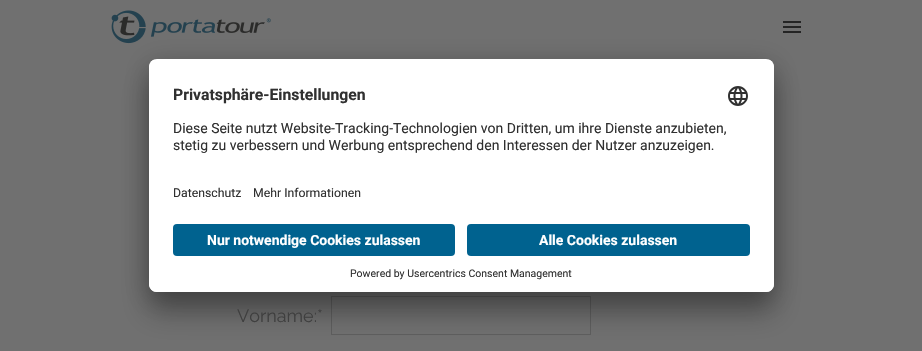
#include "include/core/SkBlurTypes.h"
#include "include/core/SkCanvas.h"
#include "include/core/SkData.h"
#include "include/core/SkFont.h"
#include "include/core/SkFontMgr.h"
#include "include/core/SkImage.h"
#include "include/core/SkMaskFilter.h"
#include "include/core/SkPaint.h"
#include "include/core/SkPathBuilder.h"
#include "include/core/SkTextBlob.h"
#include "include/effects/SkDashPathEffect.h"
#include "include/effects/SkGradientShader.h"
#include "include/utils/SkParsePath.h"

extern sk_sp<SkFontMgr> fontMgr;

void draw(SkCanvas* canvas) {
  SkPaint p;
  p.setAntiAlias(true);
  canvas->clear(SkColorSetRGB(112, 112, 112));
  canvas->drawImageRect(SkImages::DeferredFromEncodedData(SkData::MakeFromFileName("images/2.png")), SkRect::MakeLTRB(111, 10, 271, 44), SkSamplingOptions());
  p.setStyle(SkPaint::kStroke_Style);
  p.setStrokeWidth(1);
  p.setColor(SkColorSetRGB(94, 94, 94));
  canvas->drawRect(SkRect::MakeLTRB(331.5f, 296.5f, 590.5f, 334.5f), p);
  p.setStyle(SkPaint::kFill_Style);
  p.setColor(SkColorSetARGB(77, 0, 0, 0));
  p.setMaskFilter(SkMaskFilter::MakeBlur(kNormal_SkBlurStyle, 14));
  canvas->drawRoundRect(SkRect::MakeLTRB(149, 79, 774, 312), 8, 8, p);
  p.setMaskFilter(nullptr);
  p.setColor(SkColorSetRGB(36, 36, 36));
  canvas->drawRect(SkRect::MakeLTRB(783, 26, 801, 28), p);
  canvas->drawRect(SkRect::MakeLTRB(783, 31, 801, 33), p);
  p.setColor(SkColorSetARGB(56, 0, 0, 0));
  p.setMaskFilter(SkMaskFilter::MakeBlur(kNormal_SkBlurStyle, 13));
  canvas->drawRoundRect(SkRect::MakeLTRB(149, 64, 774, 297), 8, 8, p);
  p.setMaskFilter(nullptr);
  p.setColor(SK_ColorWHITE);
  canvas->drawRoundRect(SkRect::MakeLTRB(149, 59, 774, 292), 8, 8, p);
  canvas->save();
  canvas->clipPath(SkPathBuilder().moveTo(157, 59).lineTo(766, 59).cubicTo(770.5f, 59, 774, 62.5f, 774, 67).lineTo(774, 284).cubicTo(774, 288.5f, 770.5f, 292, 766, 292).lineTo(157, 292).cubicTo(152.5f, 292, 149, 288.5f, 149, 284).lineTo(149, 67).cubicTo(149, 62.5f, 152.5f, 59, 157, 59).close().detach(), true);
  canvas->clipPath(SkPathBuilder().moveTo(157, 59).lineTo(766, 59).cubicTo(770.5f, 59, 774, 62.5f, 774, 67).lineTo(774, 216).lineTo(149, 216).lineTo(149, 67).cubicTo(149, 62.5f, 152.5f, 59, 157, 59).close().detach(), true);
  canvas->drawRect(SkRect::MakeLTRB(149, 60, 774, 216), p);
  canvas->restore();
  canvas->drawImageRect(SkImages::DeferredFromEncodedData(SkData::MakeFromFileName("images/1.png")), SkRect::MakeLTRB(728, 86, 748, 106), SkSamplingOptions());
  canvas->drawPath(SkPathBuilder().moveTo(149, 216).lineTo(774, 216).lineTo(774, 284).cubicTo(774, 288.5f, 770.5f, 292, 766, 292).lineTo(157, 292).cubicTo(152.5f, 292, 149, 288.5f, 149, 284).close().detach(), p);
  p.setColor(SkColorSetRGB(0, 98, 143));
  canvas->drawRoundRect(SkRect::MakeLTRB(173, 224, 455, 256), 4, 4, p);
  canvas->drawRoundRect(SkRect::MakeLTRB(467, 224, 750, 256), 4, 4, p);
  p.setColor(SkColorSetRGB(36, 36, 36));
  canvas->drawRect(SkRect::MakeLTRB(783, 21, 801, 23), p);
  SkFont font1(fontMgr->matchFamilyStyle("Roboto", SkFontStyle::Bold()), 15.75f);
  font1.setSubpixel(true);
  p.setColor(SkColorSetRGB(48, 48, 48));
  canvas->drawString("Privatsphäre-Einstellungen", 173, 100, font1, p);
  SkFont font2(fontMgr->matchFamilyStyle("Roboto", SkFontStyle::Normal()), 14);
  font2.setSubpixel(true);
  canvas->drawString("Diese Seite nutzt Website-Tracking-Technologien von Dritten, um ihre Dienste anzubieten,", 173, 133, font2, p);
  canvas->drawString("stetig zu verbessern und Werbung entsprechend den Interessen der Nutzer anzuzeigen.", 173, 150, font2, p);
  SkFont font3(fontMgr->matchFamilyStyle("Roboto", SkFontStyle::Normal()), 12.25f);
  font3.setSubpixel(true);
  canvas->drawString("Datenschutz", 173, 197, font3, p);
  canvas->drawString("Mehr Informationen", 253, 197, font3, p);
  SkFont font4(fontMgr->matchFamilyStyle("Roboto", SkFontStyle::Bold()), 14);
  font4.setSubpixel(true);
  p.setColor(SK_ColorWHITE);
  canvas->drawString("Nur notwendige Cookies zulassen", 207, 245, font4, p);
  canvas->drawString("Alle Cookies zulassen", 539, 245, font4, p);
  SkFont font5(fontMgr->matchFamilyStyle("Roboto", SkFontStyle::Normal()), 10.5f);
  font5.setSubpixel(true);
  p.setColor(SkColorSetRGB(48, 48, 48));
  canvas->drawString("Powered by Usercentrics Consent Management", 350, 277, font5, p);
  SkFont font6(fontMgr->matchFamilyStyle("Raleway", SkFontStyle::Normal()), 18);
  font6.setSubpixel(true);
  p.setColor(SkColorSetRGB(63, 63, 63));
  canvas->drawString("Vorname:*", 237, 322, font6, p);
}
